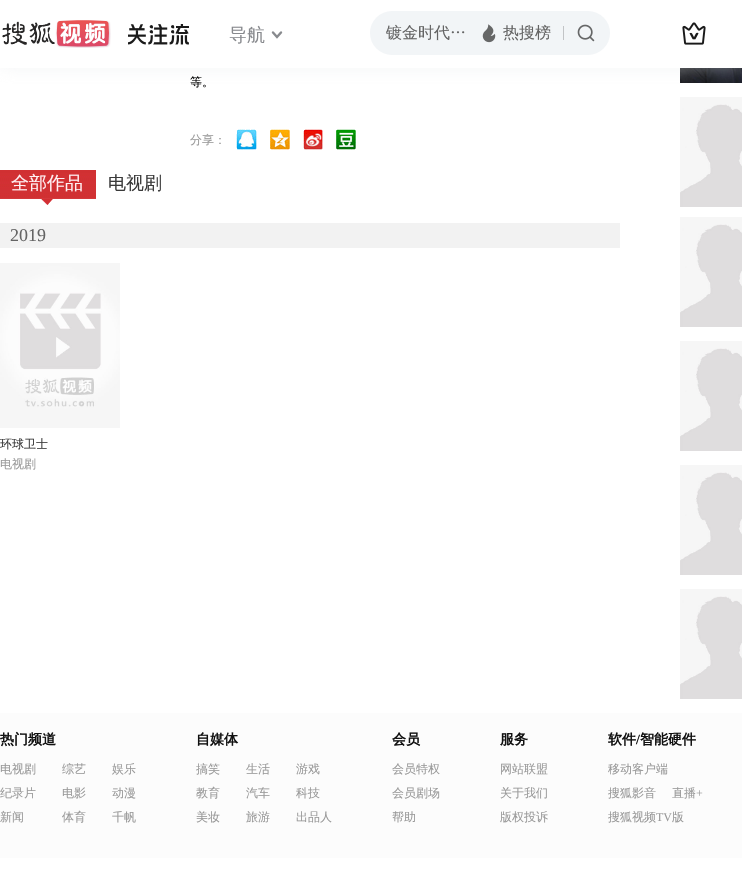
#include "include/core/SkBlurTypes.h"
#include "include/core/SkCanvas.h"
#include "include/core/SkData.h"
#include "include/core/SkFont.h"
#include "include/core/SkFontMgr.h"
#include "include/core/SkImage.h"
#include "include/core/SkMaskFilter.h"
#include "include/core/SkPaint.h"
#include "include/core/SkPathBuilder.h"
#include "include/core/SkTextBlob.h"
#include "include/effects/SkDashPathEffect.h"
#include "include/effects/SkGradientShader.h"
#include "include/utils/SkParsePath.h"

extern sk_sp<SkFontMgr> fontMgr;

void draw(SkCanvas* canvas) {
  SkPaint p;
  p.setAntiAlias(true);
  canvas->clear(SK_ColorWHITE);
  canvas->drawImageRect(SkImages::DeferredFromEncodedData(SkData::MakeFromFileName("images/13.png")), SkRect::MakeLTRB(680, 68, 742, 83), SkSamplingOptions());
  p.setColor(SkColorSetARGB(115, 230, 232, 234));
  p.setMaskFilter(SkMaskFilter::MakeBlur(kNormal_SkBlurStyle, 8));
  canvas->drawRect(SkRect::MakeLTRB(0, 0, 742, 68), p);
  p.setMaskFilter(nullptr);
  p.setColor(SK_ColorWHITE);
  canvas->drawRect(SkRect::MakeLTRB(0, 0, 742, 68), p);
  canvas->drawImageRect(SkImages::DeferredFromEncodedData(SkData::MakeFromFileName("images/1.png")), SkRect::MakeLTRB(2, 20, 111, 48), SkSamplingOptions());
  canvas->drawImageRect(SkImages::DeferredFromEncodedData(SkData::MakeFromFileName("images/2.png")), SkRect::MakeLTRB(128, 24, 189, 45), SkSamplingOptions());
  p.setStyle(SkPaint::kStroke_Style);
  p.setStrokeWidth(2.4f);
  p.setStrokeCap(SkPaint::kRound_Cap);
  p.setColor(SkColorSetRGB(136, 138, 142));
  canvas->drawPath(SkPathBuilder().moveTo(273, 32.5f).lineTo(277, 37).lineTo(281, 32.5f).detach(), p);
  p.setStyle(SkPaint::kFill_Style);
  p.setColor(SkColorSetRGB(242, 245, 247));
  canvas->drawRoundRect(SkRect::MakeLTRB(370, 11, 610, 55), 22, 22, p);
  canvas->drawImageRect(SkImages::DeferredFromEncodedData(SkData::MakeFromFileName("images/3.png")), SkRect::MakeLTRB(482, 24, 496, 43), SkSamplingOptions());
  p.setColor(SkColorSetRGB(194, 196, 198));
  canvas->drawRect(SkRect::MakeLTRB(563, 26, 564, 40), p);
  canvas->drawImageRect(SkImages::DeferredFromEncodedData(SkData::MakeFromFileName("images/4.png")), SkRect::MakeLTRB(577, 24, 595, 42), SkSamplingOptions());
  canvas->drawImageRect(SkImages::DeferredFromEncodedData(SkData::MakeFromFileName("images/5.png")), SkRect::MakeLTRB(682, 22, 706, 45), SkSamplingOptions());
  canvas->drawImageRect(SkImages::DeferredFromEncodedData(SkData::MakeFromFileName("images/6.png")), SkRect::MakeLTRB(236, 129, 257, 150), SkSamplingOptions());
  canvas->drawImageRect(SkImages::DeferredFromEncodedData(SkData::MakeFromFileName("images/7.png")), SkRect::MakeLTRB(270, 129, 290, 150), SkSamplingOptions());
  canvas->drawImageRect(SkImages::DeferredFromEncodedData(SkData::MakeFromFileName("images/8.png")), SkRect::MakeLTRB(303, 129, 323, 150), SkSamplingOptions());
  canvas->drawImageRect(SkImages::DeferredFromEncodedData(SkData::MakeFromFileName("images/9.png")), SkRect::MakeLTRB(336, 129, 356, 150), SkSamplingOptions());
  canvas->drawImageRect(SkImages::DeferredFromEncodedData(SkData::MakeFromFileName("images/10.png")), SkRect::MakeLTRB(0, 170, 96, 199), SkSamplingOptions());
  canvas->drawImageRect(SkImages::DeferredFromEncodedData(SkData::MakeFromFileName("images/11.png")), SkRect::MakeLTRB(41, 199, 53, 205), SkSamplingOptions());
  p.setColor(SkColorSetRGB(242, 242, 242));
  canvas->drawRect(SkRect::MakeLTRB(0, 223, 620, 248), p);
  canvas->drawImageRect(SkImages::DeferredFromEncodedData(SkData::MakeFromFileName("images/12.png")), SkRect::MakeLTRB(0, 263, 120, 428), SkSamplingOptions());
  canvas->drawImageRect(SkImages::DeferredFromEncodedData(SkData::MakeFromFileName("images/14.png")), SkRect::MakeLTRB(680, 97, 742, 207), SkSamplingOptions());
  canvas->drawImageRect(SkImages::DeferredFromEncodedData(SkData::MakeFromFileName("images/14.png")), SkRect::MakeLTRB(680, 217, 742, 327), SkSamplingOptions());
  canvas->drawImageRect(SkImages::DeferredFromEncodedData(SkData::MakeFromFileName("images/14.png")), SkRect::MakeLTRB(680, 341, 742, 451), SkSamplingOptions());
  canvas->drawImageRect(SkImages::DeferredFromEncodedData(SkData::MakeFromFileName("images/14.png")), SkRect::MakeLTRB(680, 465, 742, 575), SkSamplingOptions());
  canvas->drawImageRect(SkImages::DeferredFromEncodedData(SkData::MakeFromFileName("images/14.png")), SkRect::MakeLTRB(680, 589, 742, 699), SkSamplingOptions());
  p.setColor(SkColorSetRGB(252, 252, 252));
  canvas->drawRect(SkRect::MakeLTRB(0, 713, 742, 858), p);
  SkFont font1(fontMgr->matchFamilyStyle("WenQuanYi Zen Hei", SkFontStyle(500, SkFontStyle::kNormal_Width, SkFontStyle::kUpright_Slant)), 18);
  font1.setSubpixel(true);
  p.setColor(SkColorSetRGB(136, 138, 142));
  canvas->drawString("导航", 229, 41, font1, p);
  SkFont font2(fontMgr->matchFamilyStyle("WenQuanYi Zen Hei", SkFontStyle(500, SkFontStyle::kNormal_Width, SkFontStyle::kUpright_Slant)), 16);
  font2.setSubpixel(true);
  p.setColor(SkColorSetRGB(100, 100, 100));
  canvas->drawString("镀金时代…", 386, 38, font2, p);
  canvas->drawString("热搜榜", 503, 38, font2, p);
  SkFont font3(fontMgr->matchFamilyStyle("WenQuanYi Zen Hei", SkFontStyle(500, SkFontStyle::kNormal_Width, SkFontStyle::kUpright_Slant)), 12);
  font3.setSubpixel(true);
  p.setColor(SK_ColorBLACK);
  canvas->drawString("等。", 190, 86, font3, p);
  p.setColor(SkColorSetRGB(153, 153, 153));
  canvas->drawString("分享：", 190, 144, font3, p);
  p.setColor(SkColorSetRGB(255, 240, 243));
  canvas->drawString("全部作品", 11, 189, font1, p);
  p.setColor(SkColorSetRGB(58, 58, 58));
  canvas->drawString("电视剧", 108, 189, font1, p);
  SkFont font4(fontMgr->matchFamilyStyle("Liberation Serif", SkFontStyle::Normal()), 18);
  font4.setSubpixel(true);
  p.setColor(SkColorSetRGB(100, 100, 100));
  canvas->drawString("2019", 10, 241, font4, p);
  p.setColor(SkColorSetRGB(58, 58, 58));
  canvas->drawString("环球卫士", 0, 448, font3, p);
  p.setColor(SkColorSetRGB(153, 153, 153));
  canvas->drawString("电视剧", 0, 468, font3, p);
  SkFont font5(fontMgr->matchFamilyStyle("WenQuanYi Zen Hei", SkFontStyle::Bold()), 14);
  font5.setSubpixel(true);
  p.setColor(SkColorSetRGB(17, 17, 17));
  canvas->drawString("热门频道", 0, 744, font5, p);
  p.setColor(SkColorSetRGB(153, 153, 153));
  canvas->drawString("电视剧", 0, 773, font3, p);
  canvas->drawString("纪录片", 0, 797, font3, p);
  canvas->drawString("新闻", 0, 821, font3, p);
  canvas->drawString("综艺", 62, 773, font3, p);
  canvas->drawString("电影", 62, 797, font3, p);
  canvas->drawString("体育", 62, 821, font3, p);
  canvas->drawString("娱乐", 112, 773, font3, p);
  canvas->drawString("动漫", 112, 797, font3, p);
  canvas->drawString("千帆", 112, 821, font3, p);
  p.setColor(SkColorSetRGB(17, 17, 17));
  canvas->drawString("自媒体", 196, 744, font5, p);
  p.setColor(SkColorSetRGB(153, 153, 153));
  canvas->drawString("搞笑", 196, 773, font3, p);
  canvas->drawString("教育", 196, 797, font3, p);
  canvas->drawString("美妆", 196, 821, font3, p);
  canvas->drawString("生活", 246, 773, font3, p);
  canvas->drawString("汽车", 246, 797, font3, p);
  canvas->drawString("旅游", 246, 821, font3, p);
  canvas->drawString("游戏", 296, 773, font3, p);
  canvas->drawString("科技", 296, 797, font3, p);
  canvas->drawString("出品人", 296, 821, font3, p);
  p.setColor(SkColorSetRGB(17, 17, 17));
  canvas->drawString("会员", 392, 744, font5, p);
  p.setColor(SkColorSetRGB(153, 153, 153));
  canvas->drawString("会员特权", 392, 773, font3, p);
  canvas->drawString("会员剧场", 392, 797, font3, p);
  canvas->drawString("帮助", 392, 821, font3, p);
  p.setColor(SkColorSetRGB(17, 17, 17));
  canvas->drawString("服务", 500, 744, font5, p);
  p.setColor(SkColorSetRGB(153, 153, 153));
  canvas->drawString("网站联盟", 500, 773, font3, p);
  canvas->drawString("关于我们", 500, 797, font3, p);
  canvas->drawString("版权投诉", 500, 821, font3, p);
  p.setColor(SkColorSetRGB(17, 17, 17));
  canvas->drawString("软件", 608, 744, font5, p);
  SkFont font6(fontMgr->matchFamilyStyle("Liberation Serif", SkFontStyle::Bold()), 14);
  font6.setSubpixel(true);
  canvas->drawString("/", 636, 744, font6, p);
  canvas->drawString("智能硬件", 640, 744, font5, p);
  p.setColor(SkColorSetRGB(153, 153, 153));
  canvas->drawString("移动客户端", 608, 773, font3, p);
  canvas->drawString("搜狐影音", 608, 797, font3, p);
  canvas->drawString("直播", 672, 797, font3, p);
  SkFont font7(fontMgr->matchFamilyStyle("Liberation Serif", SkFontStyle::Normal()), 12);
  font7.setSubpixel(true);
  canvas->drawString("+", 696, 797, font7, p);
  canvas->drawString("搜狐视频", 608, 821, font3, p);
  canvas->drawString("TV", 656, 821, font7, p);
  canvas->drawString("版", 672, 821, font3, p);
}
